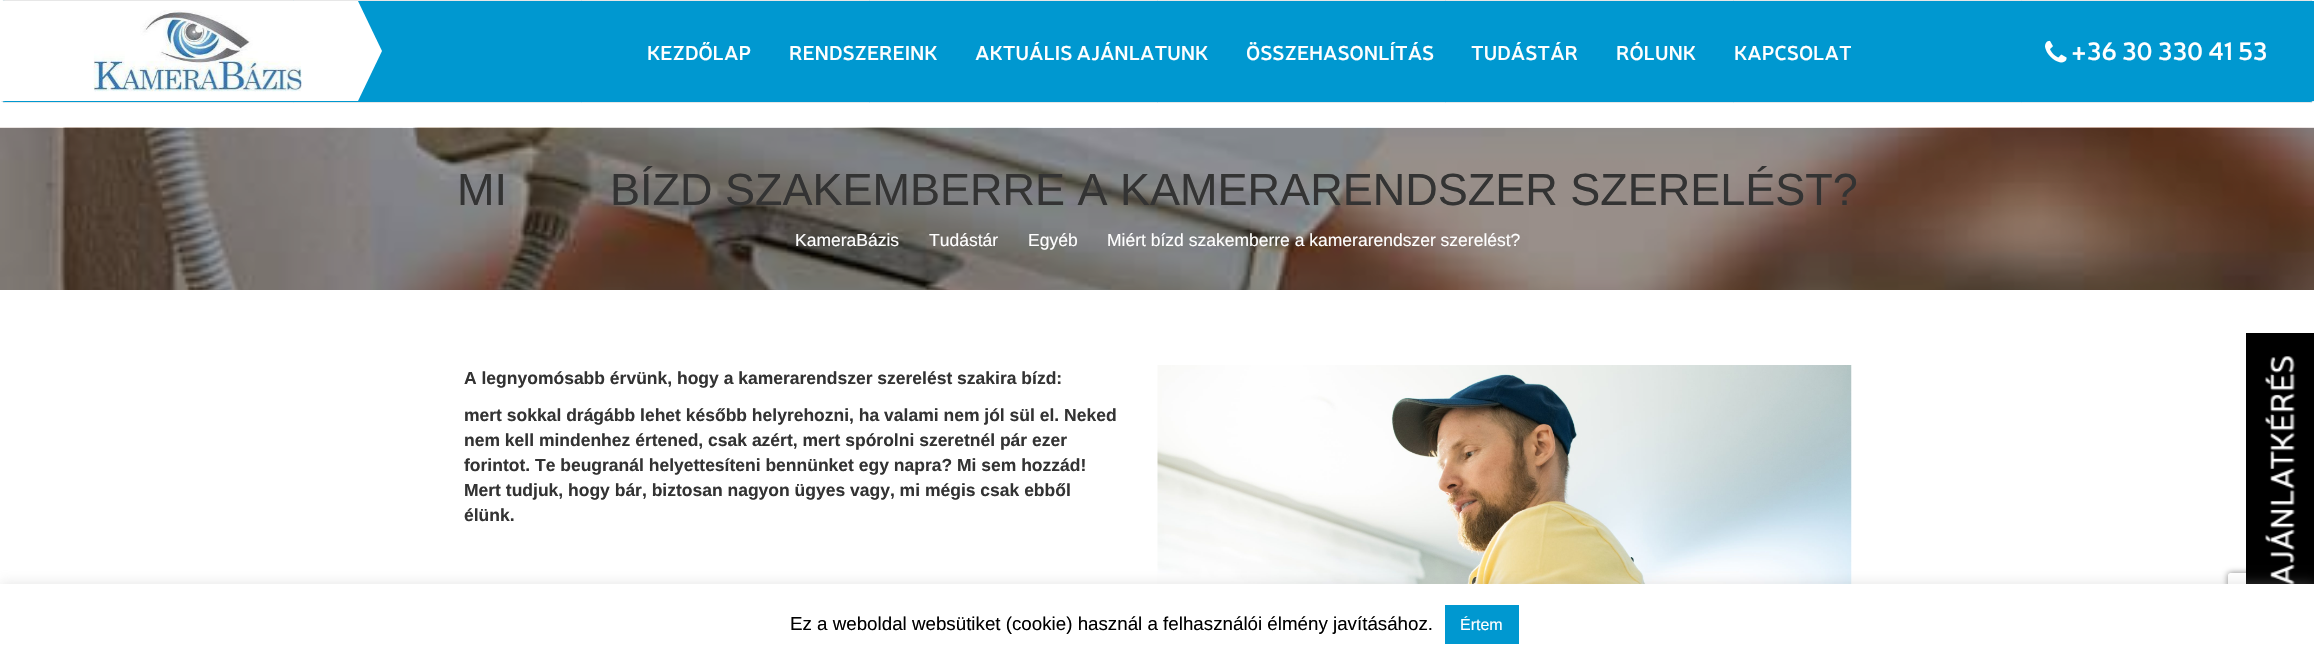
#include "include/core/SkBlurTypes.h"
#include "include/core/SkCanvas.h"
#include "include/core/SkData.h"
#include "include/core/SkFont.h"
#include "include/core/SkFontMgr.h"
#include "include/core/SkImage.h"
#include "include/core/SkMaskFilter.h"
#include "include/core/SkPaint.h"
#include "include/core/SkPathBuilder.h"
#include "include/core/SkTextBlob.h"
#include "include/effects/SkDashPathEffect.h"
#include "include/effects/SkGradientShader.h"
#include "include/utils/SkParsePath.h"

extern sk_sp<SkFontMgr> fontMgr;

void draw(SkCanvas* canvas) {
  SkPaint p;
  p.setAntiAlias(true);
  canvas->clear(SK_ColorWHITE);
  p.setColor(SkColorSetRGB(0, 152, 208));
  canvas->drawRoundRect(SkRect::MakeLTRB(0.5f, 0.5f, 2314.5f, 102.5f), 4.5f, 4.5f, p);
  p.setStyle(SkPaint::kStroke_Style);
  p.setStrokeWidth(1);
  p.setColor(SkColorSetRGB(231, 231, 231));
  canvas->drawRoundRect(SkRect::MakeLTRB(0.5f, 0.5f, 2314.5f, 102.5f), 4.5f, 4.5f, p);
  p.setStyle(SkPaint::kFill_Style);
  p.setColor(SkColorSetRGB(0, 152, 208));
  canvas->drawRect(SkRect::MakeLTRB(2310, 1, 2314, 101), p);
  p.setColor(SK_ColorWHITE);
  canvas->drawRect(SkRect::MakeLTRB(0, 1, 358, 101), p);
  canvas->drawImageRect(SkImages::DeferredFromEncodedData(SkData::MakeFromFileName("images/1.png")), SkRect::MakeLTRB(93, 10, 302, 92), SkSamplingOptions());
  canvas->drawPath(SkPathBuilder().moveTo(358, 101).lineTo(358, 1).lineTo(382, 51).close().detach(), p);
  canvas->drawImageRect(SkImages::DeferredFromEncodedData(SkData::MakeFromFileName("images/2.png")), SkRect::MakeLTRB(2045, 40, 2067, 63), SkSamplingOptions());
  canvas->drawImageRect(SkImages::DeferredFromEncodedData(SkData::MakeFromFileName("images/3.png")), SkRect::MakeLTRB(0, 127, 2314, 290), SkSamplingOptions());
  canvas->drawImageRect(SkImages::DeferredFromEncodedData(SkData::MakeFromFileName("images/4.png")), SkRect::MakeLTRB(1157, 365, 1852, 584), SkSamplingOptions());
  canvas->save();
  canvas->clipPath(SkPathBuilder(SkPathFillType::kEvenOdd).moveTo(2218, 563).lineTo(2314, 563).lineTo(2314, 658).lineTo(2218, 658).close().moveTo(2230.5f, 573).lineTo(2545.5f, 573).cubicTo(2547, 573, 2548, 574, 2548, 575.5f).lineTo(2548, 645.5f).cubicTo(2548, 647, 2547, 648, 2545.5f, 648).lineTo(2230.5f, 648).cubicTo(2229, 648, 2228, 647, 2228, 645.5f).lineTo(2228, 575.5f).cubicTo(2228, 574, 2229, 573, 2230.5f, 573).close().detach(), true);
  p.setColor(SkColorSetRGB(128, 128, 128));
  p.setMaskFilter(SkMaskFilter::MakeBlur(kNormal_SkBlurStyle, 3));
  canvas->drawRoundRect(SkRect::MakeLTRB(2228, 573, 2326, 648), 2.5f, 2.5f, p);
  p.setMaskFilter(nullptr);
  canvas->restore();
  canvas->drawImageRect(SkImages::DeferredFromEncodedData(SkData::MakeFromFileName("images/5.png")), SkRect::MakeLTRB(2246, 333, 2314, 584), SkSamplingOptions());
  p.setColor(SkColorSetARGB(77, 172, 171, 171));
  p.setMaskFilter(SkMaskFilter::MakeBlur(kNormal_SkBlurStyle, 6));
  canvas->drawRect(SkRect::MakeLTRB(0, 583, 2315, 664), p);
  p.setMaskFilter(nullptr);
  p.setColor(SK_ColorWHITE);
  canvas->drawRect(SkRect::MakeLTRB(0, 584, 2314, 664), p);
  p.setColor(SkColorSetRGB(0, 152, 208));
  canvas->drawRect(SkRect::MakeLTRB(1445, 605, 1519, 644), p);
  SkFont font1(fontMgr->matchFamilyStyle("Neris", SkFontStyle(600, SkFontStyle::kNormal_Width, SkFontStyle::kUpright_Slant)), 20);
  font1.setSubpixel(true);
  p.setColor(SK_ColorWHITE);
  canvas->drawString("KEZDŐLAP", 647, 60, font1, p);
  canvas->drawString("RENDSZEREINK", 789, 60, font1, p);
  canvas->drawString("AKTUÁLIS AJÁNLATUNK", 975, 60, font1, p);
  canvas->drawString("ÖSSZEHASONLÍTÁS", 1246, 60, font1, p);
  canvas->drawString("TUDÁSTÁR", 1471, 60, font1, p);
  canvas->drawString("RÓLUNK", 1616, 60, font1, p);
  canvas->drawString("KAPCSOLAT", 1734, 60, font1, p);
  SkFont font2(fontMgr->matchFamilyStyle("Neris", SkFontStyle(600, SkFontStyle::kNormal_Width, SkFontStyle::kUpright_Slant)), 25);
  font2.setSubpixel(true);
  canvas->drawString("+36 30 330 41 53", 2071, 60, font2, p);
  SkFont font3(fontMgr->matchFamilyStyle("Liberation Sans", SkFontStyle::Normal()), 45);
  font3.setSubpixel(true);
  p.setColor(SkColorSetRGB(51, 51, 51));
  canvas->drawString("MI", 457, 205, font3, p);
  canvas->drawString("BÍZD SZAKEMBERRE A KAMERARENDSZER SZERELÉST?", 610, 205, font3, p);
  SkFont font4(fontMgr->matchFamilyStyle("Liberation Sans", SkFontStyle::Normal()), 17.5f);
  font4.setSubpixel(true);
  p.setColor(SK_ColorWHITE);
  canvas->drawString("KameraBázis", 795, 246, font4, p);
  canvas->drawString("Tudástár", 929, 246, font4, p);
  canvas->drawString("Egyéb", 1028, 246, font4, p);
  canvas->drawString("Miért bízd szakemberre a kamerarendszer szerelést?", 1107, 246, font4, p);
  SkFont font5(fontMgr->matchFamilyStyle("Liberation Sans", SkFontStyle::Bold()), 17.5f);
  font5.setSubpixel(true);
  p.setColor(SkColorSetRGB(51, 51, 51));
  canvas->drawString("A legnyomósabb érvünk, hogy a kamerarendszer szerelést szakira bízd:", 464, 384, font5, p);
  canvas->drawString("mert sokkal drágább lehet később helyrehozni, ha valami nem jól sül el. Neked", 464, 421, font5, p);
  canvas->drawString("nem kell mindenhez értened, csak azért, mert spórolni szeretnél pár ezer", 464, 446, font5, p);
  canvas->drawString("forintot. Te beugranál helyettesíteni bennünket egy napra? Mi sem hozzád!", 464, 471, font5, p);
  canvas->drawString("Mert tudjuk, hogy bár, biztosan nagyon ügyes vagy, mi mégis csak ebből", 464, 496, font5, p);
  canvas->drawString("élünk.", 464, 521, font5, p);
  SkFont font6(fontMgr->matchFamilyStyle("Liberation Sans", SkFontStyle::Normal()), 18.75f);
  font6.setSubpixel(true);
  p.setColor(SK_ColorBLACK);
  canvas->drawString("Ez a weboldal websütiket (cookie) használ a felhasználói élmény javításához.", 790, 630, font6, p);
  SkFont font7(fontMgr->matchFamilyStyle("Liberation Sans", SkFontStyle::Normal()), 16);
  font7.setSubpixel(true);
  p.setColor(SK_ColorWHITE);
  canvas->drawString("Értem", 1460, 630, font7, p);
}
